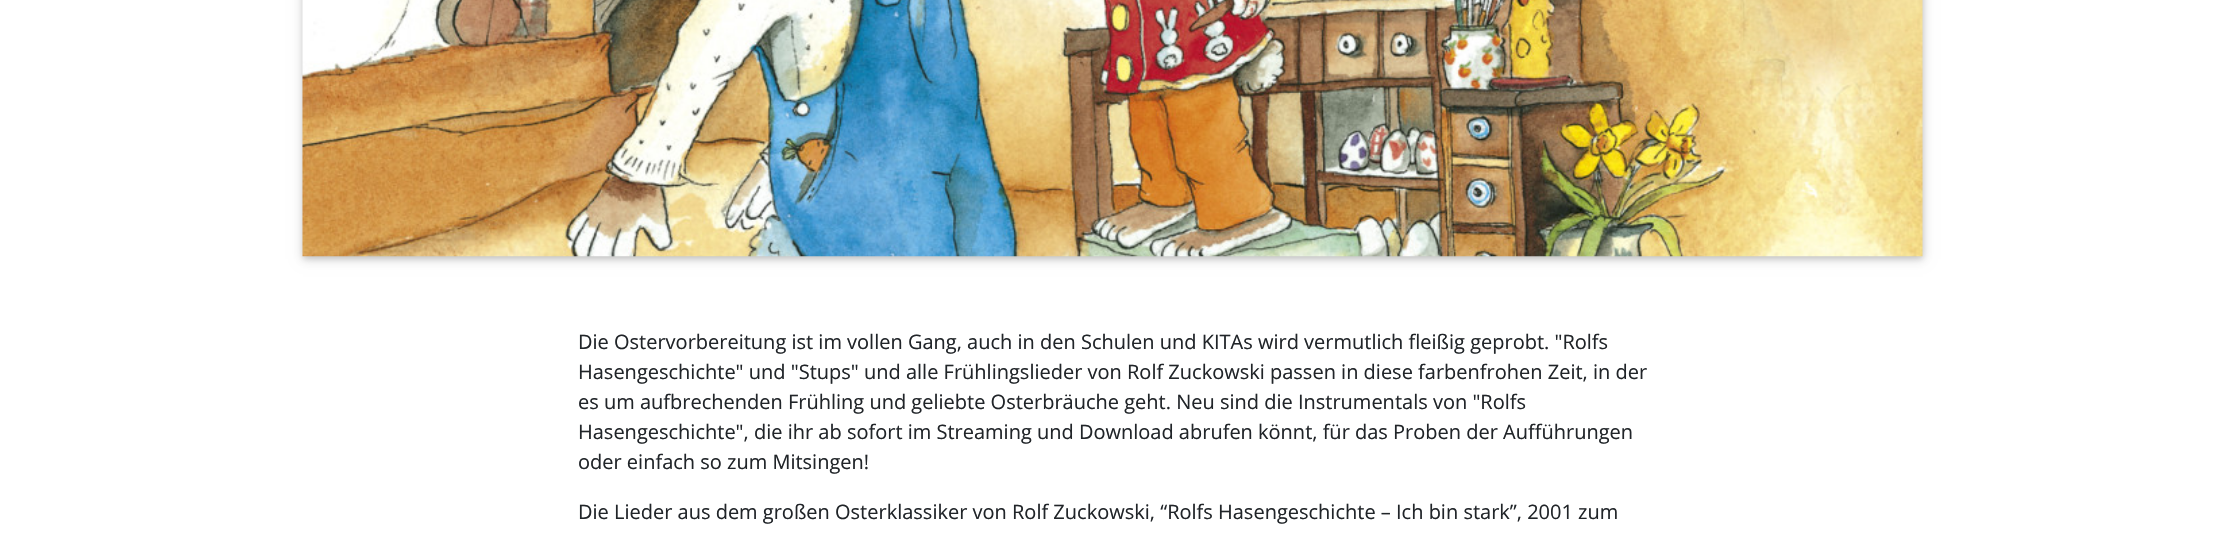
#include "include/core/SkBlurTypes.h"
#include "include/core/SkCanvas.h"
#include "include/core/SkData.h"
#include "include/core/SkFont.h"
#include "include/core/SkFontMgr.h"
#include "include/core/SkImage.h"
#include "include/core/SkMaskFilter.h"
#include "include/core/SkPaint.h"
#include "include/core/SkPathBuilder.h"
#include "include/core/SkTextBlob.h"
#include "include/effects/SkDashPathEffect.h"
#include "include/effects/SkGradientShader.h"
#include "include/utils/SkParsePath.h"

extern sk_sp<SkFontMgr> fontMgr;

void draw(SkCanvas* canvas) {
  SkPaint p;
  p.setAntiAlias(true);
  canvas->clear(SK_ColorWHITE);
  p.setColor(SkColorSetARGB(31, 0, 0, 0));
  p.setMaskFilter(SkMaskFilter::MakeBlur(kNormal_SkBlurStyle, 6));
  canvas->drawRect(SkRect::MakeLTRB(303, -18, 1923, 259), p);
  p.setMaskFilter(nullptr);
  p.setColor(SkColorSetARGB(41, 0, 0, 0));
  p.setMaskFilter(SkMaskFilter::MakeBlur(kNormal_SkBlurStyle, 3));
  canvas->drawRect(SkRect::MakeLTRB(303, -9, 1923, 259), p);
  p.setMaskFilter(nullptr);
  canvas->drawImageRect(SkImages::DeferredFromEncodedData(SkData::MakeFromFileName("images/1.png")), SkRect::MakeLTRB(302, 0, 1923, 257), SkSamplingOptions());
  SkFont font1(fontMgr->matchFamilyStyle("Open Sans", SkFontStyle::Normal()), 20);
  font1.setSubpixel(true);
  p.setColor(SkColorSetRGB(33, 37, 41));
  canvas->drawString("Die Ostervorbereitung ist im vollen Gang, auch in den Schulen und KITAs wird vermutlich fleißig geprobt. \"Rolfs", 578, 349, font1, p);
  canvas->drawString("Hasengeschichte\" und \"Stups\" und alle Frühlingslieder von Rolf Zuckowski passen in diese farbenfrohen Zeit, in der", 578, 379, font1, p);
  canvas->drawString("es um aufbrechenden Frühling und geliebte Osterbräuche geht. Neu sind die Instrumentals von \"Rolfs", 578, 409, font1, p);
  canvas->drawString("Hasengeschichte\", die ihr ab sofort im Streaming und Download abrufen könnt, für das Proben der Aufführungen", 578, 439, font1, p);
  canvas->drawString("oder einfach so zum Mitsingen!", 578, 469, font1, p);
  canvas->drawString("Die Lieder aus dem großen Osterklassiker von Rolf Zuckowski, “Rolfs Hasengeschichte – Ich bin stark”, 2001 zum", 578, 519, font1, p);
}
